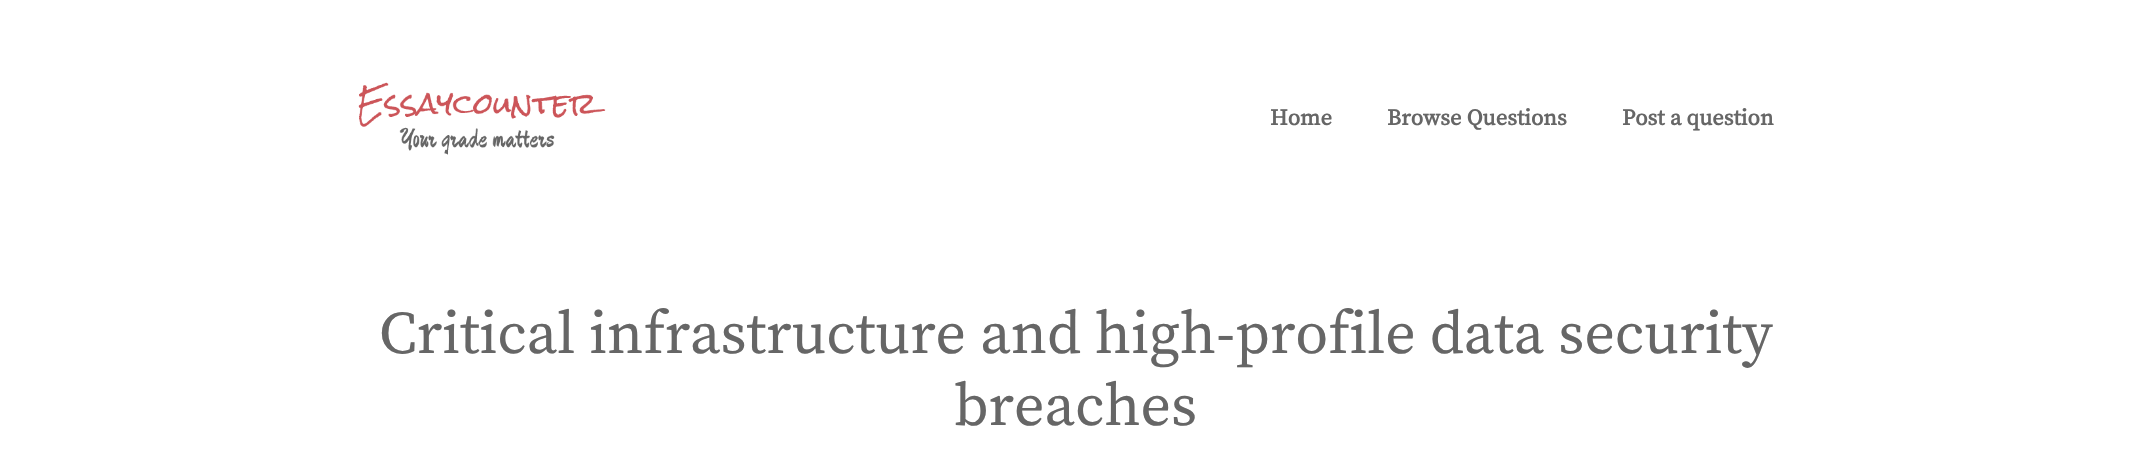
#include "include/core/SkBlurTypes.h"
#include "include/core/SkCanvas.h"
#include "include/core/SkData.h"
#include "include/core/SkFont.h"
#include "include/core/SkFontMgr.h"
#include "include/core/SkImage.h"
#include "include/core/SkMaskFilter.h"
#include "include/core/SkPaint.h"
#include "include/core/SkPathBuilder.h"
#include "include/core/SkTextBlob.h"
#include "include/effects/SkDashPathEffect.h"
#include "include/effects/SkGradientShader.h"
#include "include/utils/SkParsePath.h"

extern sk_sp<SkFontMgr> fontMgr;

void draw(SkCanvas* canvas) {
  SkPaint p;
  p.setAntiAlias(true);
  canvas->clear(SK_ColorWHITE);
  canvas->drawImageRect(SkImages::DeferredFromEncodedData(SkData::MakeFromFileName("images/1.png")), SkRect::MakeLTRB(358, 82, 606, 155), SkSamplingOptions());
  SkFont font1(fontMgr->matchFamilyStyle("Source Serif Pro", SkFontStyle::Bold()), 22.5f);
  font1.setSubpixel(true);
  p.setColor(SkColorSetRGB(102, 102, 102));
  canvas->drawString("Home", 1270, 125, font1, p);
  canvas->drawString("Browse Questions", 1387, 125, font1, p);
  canvas->drawString("Post a question", 1622, 125, font1, p);
  SkFont font2(fontMgr->matchFamilyStyle("Source Serif Pro", SkFontStyle::Normal()), 60);
  font2.setSubpixel(true);
  canvas->drawString("Critical infrastructure and high-profile data security", 379, 353, font2, p);
  canvas->drawString("breaches", 954, 425, font2, p);
}
